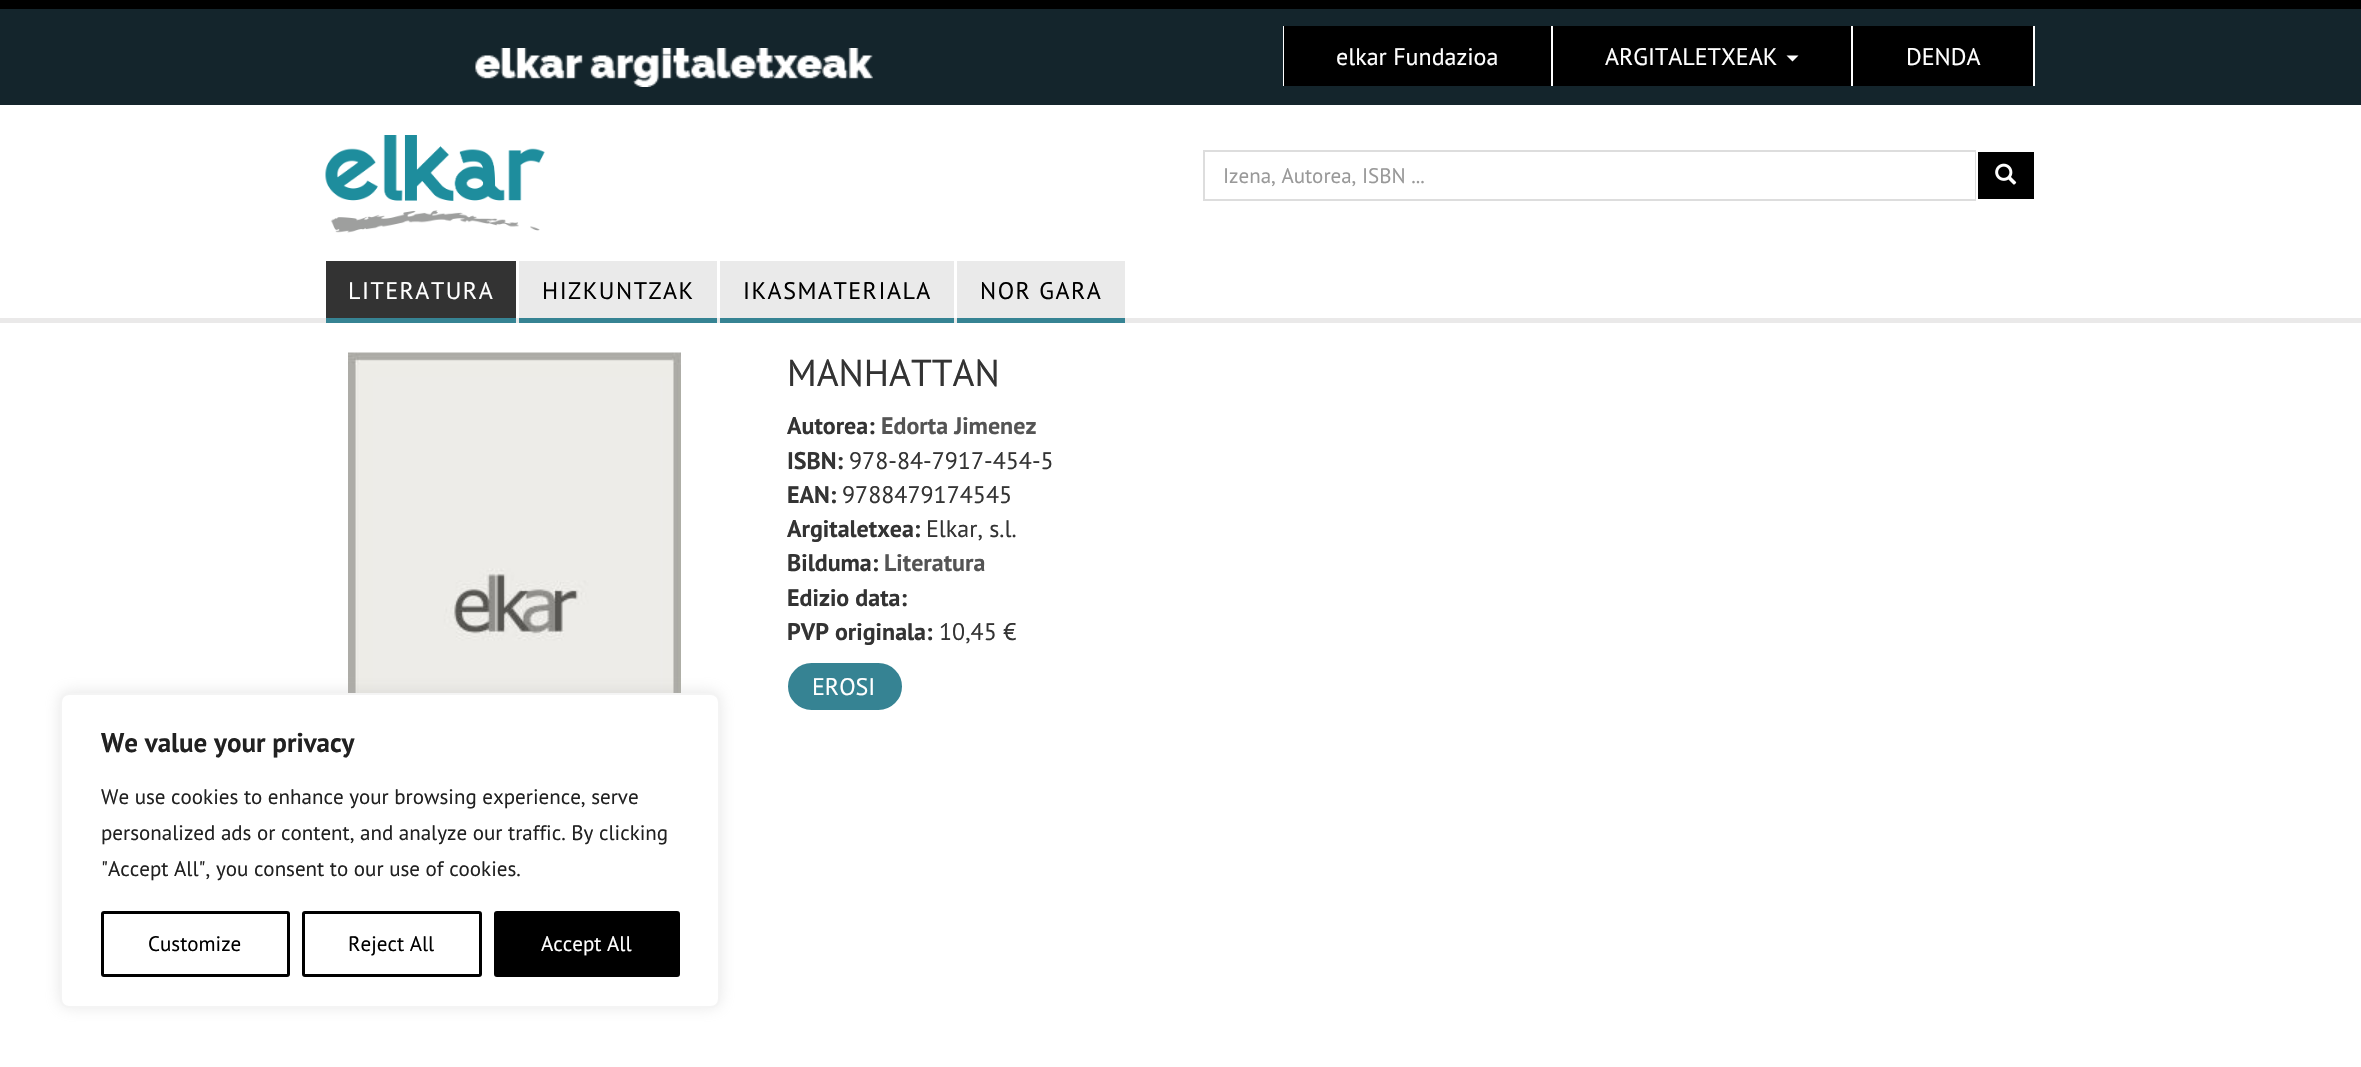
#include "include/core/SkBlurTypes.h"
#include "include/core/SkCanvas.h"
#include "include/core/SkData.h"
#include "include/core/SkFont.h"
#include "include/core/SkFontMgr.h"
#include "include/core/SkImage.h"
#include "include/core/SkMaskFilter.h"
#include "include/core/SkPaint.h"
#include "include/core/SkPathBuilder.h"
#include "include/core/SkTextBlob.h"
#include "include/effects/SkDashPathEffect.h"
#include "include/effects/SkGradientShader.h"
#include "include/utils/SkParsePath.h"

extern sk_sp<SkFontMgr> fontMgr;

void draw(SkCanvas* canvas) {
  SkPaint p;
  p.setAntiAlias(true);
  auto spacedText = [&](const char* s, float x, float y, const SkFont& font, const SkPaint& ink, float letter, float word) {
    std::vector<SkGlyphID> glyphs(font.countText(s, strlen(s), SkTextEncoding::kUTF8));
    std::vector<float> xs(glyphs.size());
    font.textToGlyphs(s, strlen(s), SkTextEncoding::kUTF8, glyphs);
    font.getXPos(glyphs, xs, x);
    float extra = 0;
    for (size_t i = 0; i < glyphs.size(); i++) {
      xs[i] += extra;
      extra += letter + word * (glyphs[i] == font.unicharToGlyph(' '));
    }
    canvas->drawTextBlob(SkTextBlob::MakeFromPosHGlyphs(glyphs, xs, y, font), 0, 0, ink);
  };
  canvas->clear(SK_ColorWHITE);
  p.setColor(SkColorSetRGB(20, 37, 44));
  canvas->drawRect(SkRect::MakeLTRB(0, 9, 2361, 105), p);
  p.setColor(SK_ColorBLACK);
  canvas->drawRect(SkRect::MakeLTRB(0, 0, 2361, 9), p);
  canvas->drawImageRect(SkImages::DeferredFromEncodedData(SkData::MakeFromFileName("images/1.png")), SkRect::MakeLTRB(475, 48, 873, 87), SkSamplingOptions());
  p.setColor(SK_ColorWHITE);
  canvas->drawRect(SkRect::MakeLTRB(1551, 26, 1553, 86), p);
  canvas->drawRect(SkRect::MakeLTRB(1283, 26, 1284, 86), p);
  p.setColor(SK_ColorBLACK);
  canvas->drawRect(SkRect::MakeLTRB(1284, 26, 1551, 86), p);
  p.setColor(SK_ColorWHITE);
  canvas->drawRect(SkRect::MakeLTRB(1851, 26, 1853, 86), p);
  p.setColor(SK_ColorBLACK);
  canvas->drawRect(SkRect::MakeLTRB(1553, 26, 1851, 86), p);
  p.setColor(SK_ColorWHITE);
  canvas->drawPath(SkPathBuilder().moveTo(1786.5f, 55.5f).lineTo(1798.5f, 55.5f).lineTo(1792.5f, 61.5f).close().detach(), p);
  canvas->drawRect(SkRect::MakeLTRB(2033, 26, 2035, 86), p);
  p.setColor(SK_ColorBLACK);
  canvas->drawRect(SkRect::MakeLTRB(1853, 26, 2033, 86), p);
  canvas->drawImageRect(SkImages::DeferredFromEncodedData(SkData::MakeFromFileName("images/2.png")), SkRect::MakeLTRB(325, 135, 545, 233), SkSamplingOptions());
  p.setStyle(SkPaint::kStroke_Style);
  p.setStrokeWidth(2);
  p.setColor(SkColorSetRGB(221, 221, 221));
  canvas->drawRect(SkRect::MakeLTRB(1204, 151, 1976, 200), p);
  p.setStyle(SkPaint::kFill_Style);
  p.setColor(SK_ColorBLACK);
  canvas->drawRect(SkRect::MakeLTRB(1977, 151, 2035, 200), p);
  p.setStyle(SkPaint::kStroke_Style);
  p.setColor(SK_ColorWHITE);
  canvas->drawRect(SkRect::MakeLTRB(1977, 151, 2035, 200), p);
  canvas->drawImageRect(SkImages::DeferredFromEncodedData(SkData::MakeFromFileName("images/3.png")), SkRect::MakeLTRB(1995, 163, 2017, 185), SkSamplingOptions());
  p.setStyle(SkPaint::kFill_Style);
  p.setColor(SkColorSetRGB(234, 233, 233));
  canvas->drawRect(SkRect::MakeLTRB(0, 318, 2361, 323), p);
  p.setColor(SkColorSetRGB(54, 131, 147));
  canvas->drawRect(SkRect::MakeLTRB(326, 318, 516, 323), p);
  p.setColor(SkColorSetRGB(51, 51, 51));
  canvas->drawRect(SkRect::MakeLTRB(326, 261, 516, 318), p);
  p.setColor(SkColorSetRGB(54, 131, 147));
  canvas->drawRect(SkRect::MakeLTRB(519, 318, 717, 323), p);
  p.setColor(SkColorSetRGB(234, 234, 234));
  canvas->drawRect(SkRect::MakeLTRB(519, 261, 717, 318), p);
  p.setColor(SkColorSetRGB(54, 131, 147));
  canvas->drawRect(SkRect::MakeLTRB(720, 318, 954, 323), p);
  p.setColor(SkColorSetRGB(234, 234, 234));
  canvas->drawRect(SkRect::MakeLTRB(720, 261, 954, 318), p);
  p.setColor(SkColorSetRGB(54, 131, 147));
  canvas->drawRect(SkRect::MakeLTRB(957, 318, 1125, 323), p);
  p.setColor(SkColorSetRGB(234, 234, 234));
  canvas->drawRect(SkRect::MakeLTRB(957, 261, 1125, 318), p);
  canvas->drawImageRect(SkImages::DeferredFromEncodedData(SkData::MakeFromFileName("images/4.png")), SkRect::MakeLTRB(348, 352, 681, 693), SkSamplingOptions());
  p.setColor(SkColorSetRGB(54, 131, 147));
  canvas->drawRoundRect(SkRect::MakeLTRB(789, 664, 901, 709), 22.5f, 22.5f, p);
  p.setStyle(SkPaint::kStroke_Style);
  canvas->drawRoundRect(SkRect::MakeLTRB(789, 664, 901, 709), 22.5f, 22.5f, p);
  p.setStyle(SkPaint::kFill_Style);
  p.setColor(SkColorSetARGB(77, 172, 171, 171));
  p.setMaskFilter(SkMaskFilter::MakeBlur(kNormal_SkBlurStyle, 7.5f));
  canvas->drawRoundRect(SkRect::MakeLTRB(60, 692, 720, 1007), 9, 9, p);
  p.setMaskFilter(nullptr);
  p.setColor(SK_ColorWHITE);
  canvas->drawRoundRect(SkRect::MakeLTRB(61, 694, 719, 1007), 8, 8, p);
  p.setStyle(SkPaint::kStroke_Style);
  p.setColor(SkColorSetRGB(244, 244, 244));
  canvas->drawRoundRect(SkRect::MakeLTRB(61, 694, 719, 1007), 8, 8, p);
  p.setStrokeWidth(3);
  p.setColor(SK_ColorBLACK);
  canvas->drawRoundRect(SkRect::MakeLTRB(102.5f, 912.5f, 288.5f, 975.5f), 1.5f, 1.5f, p);
  canvas->drawRoundRect(SkRect::MakeLTRB(303.5f, 912.5f, 480.5f, 975.5f), 1.5f, 1.5f, p);
  p.setStyle(SkPaint::kFill_Style);
  canvas->drawRoundRect(SkRect::MakeLTRB(495.5f, 912.5f, 678.5f, 975.5f), 1.5f, 1.5f, p);
  p.setStyle(SkPaint::kStroke_Style);
  canvas->drawRoundRect(SkRect::MakeLTRB(495.5f, 912.5f, 678.5f, 975.5f), 1.5f, 1.5f, p);
  SkFont font1(fontMgr->matchFamilyStyle("PT Sans", SkFontStyle::Normal()), 24);
  font1.setSubpixel(true);
  p.setStyle(SkPaint::kFill_Style);
  p.setColor(SK_ColorWHITE);
  canvas->drawString("elkar Fundazioa", 1336, 65, font1, p);
  canvas->drawString("ARGITALETXEAK", 1605, 65, font1, p);
  canvas->drawString("DENDA", 1906, 65, font1, p);
  SkFont font2(fontMgr->matchFamilyStyle("PT Sans", SkFontStyle::Normal()), 21);
  font2.setSubpixel(true);
  p.setColor(SkColorSetRGB(153, 153, 153));
  canvas->drawString("Izena, Autorea, ISBN ...", 1223, 183, font2, p);
  p.setColor(SK_ColorWHITE);
  spacedText("LITERATURA", 348, 299, font1, p, 1.5f, 0);
  p.setColor(SK_ColorBLACK);
  spacedText("HIZKUNTZAK", 542, 299, font1, p, 1.5f, 0);
  spacedText("IKASMATERIALA", 743, 299, font1, p, 1.5f, 0);
  spacedText("NOR GARA", 980, 299, font1, p, 1.5f, 0);
  SkFont font3(fontMgr->matchFamilyStyle("PT Sans", SkFontStyle::Normal()), 37.5f);
  font3.setSubpixel(true);
  p.setColor(SkColorSetRGB(51, 51, 51));
  canvas->drawString("MANHATTAN", 787, 386, font3, p);
  SkFont font4(fontMgr->matchFamilyStyle("PT Sans", SkFontStyle::Bold()), 24);
  font4.setSubpixel(true);
  canvas->drawString("Autorea:", 787, 434, font4, p);
  p.setColor(SkColorSetRGB(84, 84, 84));
  canvas->drawString("Edorta Jimenez", 881, 434, font4, p);
  p.setColor(SkColorSetRGB(51, 51, 51));
  canvas->drawString("ISBN:", 787, 469, font4, p);
  canvas->drawString("978-84-7917-454-5", 849, 469, font1, p);
  canvas->drawString("EAN:", 787, 503, font4, p);
  canvas->drawString("9788479174545", 842, 503, font1, p);
  canvas->drawString("Argitaletxea:", 787, 537, font4, p);
  canvas->drawString("Elkar, s.l.", 926, 537, font1, p);
  canvas->drawString("Bilduma:", 787, 571, font4, p);
  p.setColor(SkColorSetRGB(84, 84, 84));
  canvas->drawString("Literatura", 884, 571, font4, p);
  p.setColor(SkColorSetRGB(51, 51, 51));
  canvas->drawString("Edizio data:", 787, 606, font4, p);
  canvas->drawString("PVP originala:", 787, 640, font4, p);
  canvas->drawString("10,45 €", 939, 640, font1, p);
  p.setColor(SK_ColorWHITE);
  canvas->drawString("EROSI", 812, 695, font1, p);
  SkFont font5(fontMgr->matchFamilyStyle("PT Sans", SkFontStyle::Bold()), 27);
  font5.setSubpixel(true);
  p.setColor(SkColorSetRGB(33, 33, 33));
  canvas->drawString("We value your privacy", 101, 752, font5, p);
  canvas->drawString("We use cookies to enhance your browsing experience, serve", 101, 804, font2, p);
  canvas->drawString("personalized ads or content, and analyze our traffic. By clicking", 101, 840, font2, p);
  canvas->drawString("\"Accept All\", you consent to our use of cookies.", 101, 876, font2, p);
  p.setColor(SK_ColorBLACK);
  canvas->drawString("Customize", 148, 951, font2, p);
  canvas->drawString("Reject All", 348, 951, font2, p);
  p.setColor(SK_ColorWHITE);
  canvas->drawString("Accept All", 541, 951, font2, p);
}
